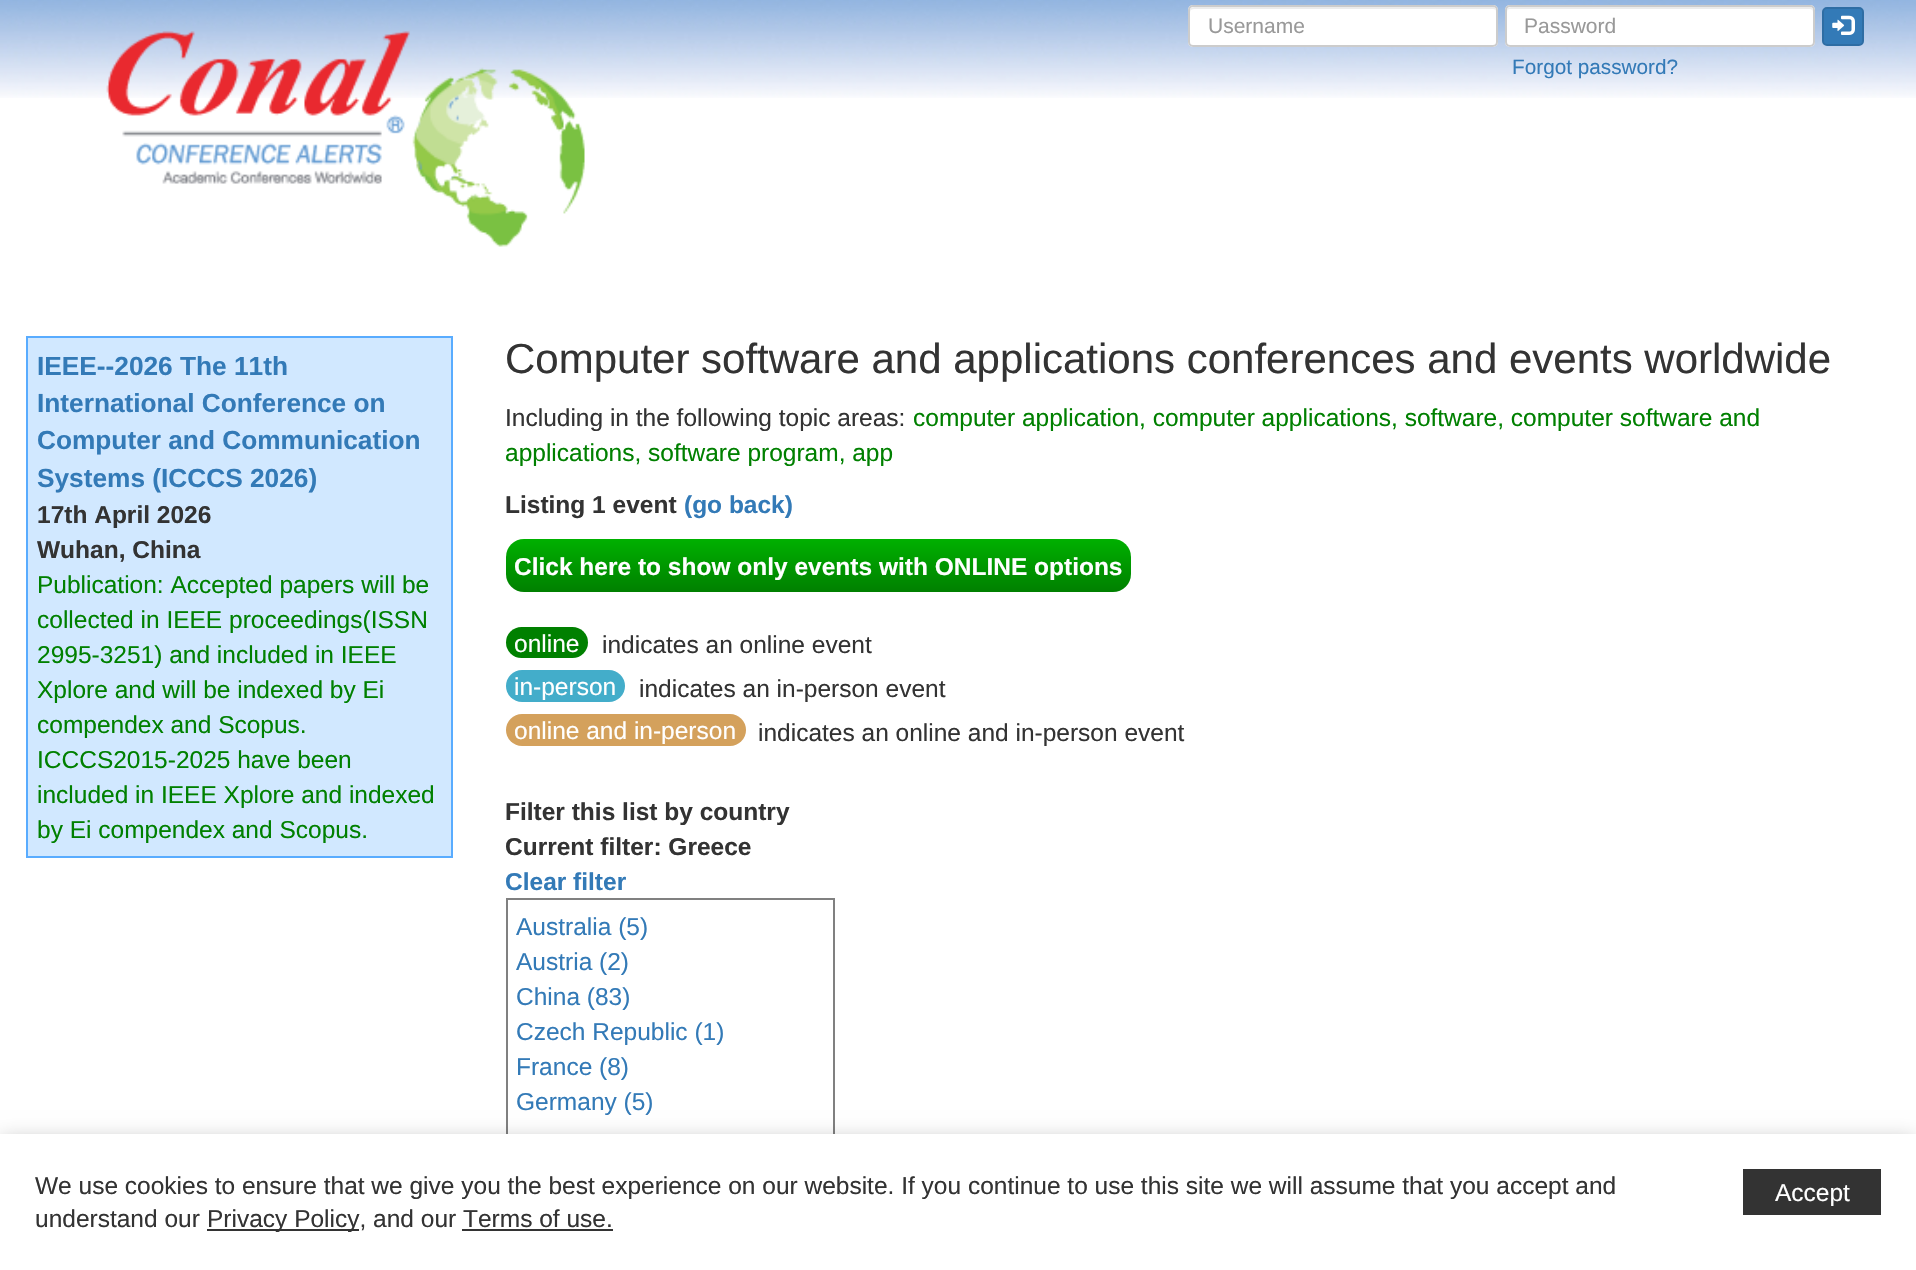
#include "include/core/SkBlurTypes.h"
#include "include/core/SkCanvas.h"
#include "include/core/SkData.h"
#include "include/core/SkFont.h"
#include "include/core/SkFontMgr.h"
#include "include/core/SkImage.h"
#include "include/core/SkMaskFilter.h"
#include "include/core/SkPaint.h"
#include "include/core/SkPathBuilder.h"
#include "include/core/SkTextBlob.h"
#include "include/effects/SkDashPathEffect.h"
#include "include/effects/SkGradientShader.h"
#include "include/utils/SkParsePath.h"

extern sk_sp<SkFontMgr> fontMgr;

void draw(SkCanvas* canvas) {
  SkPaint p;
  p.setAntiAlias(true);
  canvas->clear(SK_ColorWHITE);
  canvas->drawImageRect(SkImages::DeferredFromEncodedData(SkData::MakeFromFileName("images/1.png")), SkRect::MakeLTRB(0, 0, 1916, 98), SkSamplingOptions());
  p.setColor(SK_ColorWHITE);
  canvas->drawRoundRect(SkRect::MakeLTRB(1188, 5, 1498, 47), 5, 5, p);
  p.setColor(SkColorSetRGB(236, 236, 236));
  canvas->drawPath(SkPathBuilder().moveTo(1194, 9).lineTo(1493, 9).cubicTo(1495, 9, 1496, 10, 1496, 12).cubicTo(1496, 9, 1495, 7, 1492, 7).lineTo(1194, 7).lineTo(1191, 8).cubicTo(1190, 9, 1190, 11, 1190, 12).cubicTo(1190, 10, 1192, 9, 1194, 9).close().detach(), p);
  p.setStyle(SkPaint::kStroke_Style);
  p.setStrokeWidth(2);
  p.setColor(SkColorSetRGB(204, 204, 204));
  canvas->drawRoundRect(SkRect::MakeLTRB(1189, 6, 1497, 46), 4, 4, p);
  p.setStyle(SkPaint::kFill_Style);
  p.setColor(SK_ColorWHITE);
  canvas->drawRoundRect(SkRect::MakeLTRB(1505, 5, 1815, 47), 5, 5, p);
  p.setColor(SkColorSetRGB(236, 236, 236));
  canvas->drawPath(SkPathBuilder().moveTo(1510, 9).lineTo(1810, 9).cubicTo(1811, 9, 1813, 10, 1813, 12).cubicTo(1813, 9, 1812, 7, 1809, 7).lineTo(1511, 7).lineTo(1508, 8).cubicTo(1507, 9, 1507, 11, 1507, 12).cubicTo(1507, 10, 1508, 9, 1510, 9).close().detach(), p);
  p.setStyle(SkPaint::kStroke_Style);
  p.setColor(SkColorSetRGB(204, 204, 204));
  canvas->drawRoundRect(SkRect::MakeLTRB(1506, 6, 1814, 46), 4, 4, p);
  p.setStyle(SkPaint::kFill_Style);
  p.setColor(SkColorSetRGB(51, 122, 183));
  canvas->drawRoundRect(SkRect::MakeLTRB(1823, 8, 1863, 45), 4, 4, p);
  p.setStyle(SkPaint::kStroke_Style);
  p.setColor(SkColorSetRGB(46, 109, 164));
  canvas->drawRoundRect(SkRect::MakeLTRB(1823, 8, 1863, 45), 4, 4, p);
  canvas->drawImageRect(SkImages::DeferredFromEncodedData(SkData::MakeFromFileName("images/2.png")), SkRect::MakeLTRB(1832, 15, 1855, 35), SkSamplingOptions());
  p.setColor(SkColorSetRGB(128, 128, 128));
  canvas->drawRect(SkRect::MakeLTRB(507, 899, 834, 1247), p);
  p.setStyle(SkPaint::kFill_Style);
  p.setColor(SkColorSetARGB(77, 0, 0, 0));
  p.setMaskFilter(SkMaskFilter::MakeBlur(kNormal_SkBlurStyle, 10.5f));
  canvas->drawRect(SkRect::MakeLTRB(0, 1141, 1916, 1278), p);
  p.setMaskFilter(nullptr);
  p.setColor(SK_ColorWHITE);
  canvas->drawRect(SkRect::MakeLTRB(0, 1134, 1916, 1270), p);
  p.setColor(SkColorSetRGB(51, 51, 51));
  canvas->drawRect(SkRect::MakeLTRB(207, 1229, 359, 1231), p);
  canvas->drawRect(SkRect::MakeLTRB(462, 1229, 613, 1231), p);
  canvas->drawRect(SkRect::MakeLTRB(1743, 1169, 1881, 1215), p);
  canvas->drawImageRect(SkImages::DeferredFromEncodedData(SkData::MakeFromFileName("images/3.png")), SkRect::MakeLTRB(106, 31, 585, 247), SkSamplingOptions());
  p.setColor(SkColorSetRGB(209, 232, 255));
  canvas->drawRect(SkRect::MakeLTRB(27, 337, 452, 857), p);
  p.setStyle(SkPaint::kStroke_Style);
  p.setColor(SkColorSetRGB(89, 172, 255));
  canvas->drawRect(SkRect::MakeLTRB(27, 337, 452, 857), p);
  p.setStyle(SkPaint::kFill_Style);
  {
    const SkColor colors[] = {SkColorSetRGB(0, 176, 0), SkColorSetRGB(0, 128, 0)};
    const float stops[] = {0, 1};
    const SkPoint ends[] = {{818, 539}, {818, 592}};
    p.setShader(SkGradientShader::MakeLinear(ends, colors, stops, 2, SkTileMode::kClamp));
    p.setAlpha(255);
  }
  canvas->drawRoundRect(SkRect::MakeLTRB(506, 539, 1131, 592), 18, 18, p);
  p.setShader(nullptr);
  p.setColor(SkColorSetRGB(0, 128, 0));
  canvas->drawRoundRect(SkRect::MakeLTRB(506, 627, 588, 658), 15.5f, 15.5f, p);
  p.setColor(SkColorSetRGB(67, 173, 202));
  canvas->drawRoundRect(SkRect::MakeLTRB(506, 670, 625, 702), 16, 16, p);
  p.setColor(SkColorSetRGB(212, 161, 92));
  canvas->drawRoundRect(SkRect::MakeLTRB(506, 714, 746, 746), 16, 16, p);
  SkFont font1(fontMgr->matchFamilyStyle("Liberation Sans", SkFontStyle::Normal()), 21);
  font1.setSubpixel(true);
  p.setColor(SkColorSetRGB(153, 153, 153));
  canvas->drawString("Username", 1208, 33, font1, p);
  canvas->drawString("Password", 1524, 33, font1, p);
  SkFont font2(fontMgr->matchFamilyStyle("Liberation Sans", SkFontStyle::Normal()), 20.75f);
  font2.setSubpixel(true);
  p.setColor(SkColorSetRGB(51, 122, 183));
  canvas->drawString("Forgot password?", 1512, 74, font2, p);
  SkFont font3(fontMgr->matchFamilyStyle("Liberation Sans", SkFontStyle::Normal()), 24.5f);
  font3.setSubpixel(true);
  p.setColor(SkColorSetRGB(51, 51, 51));
  canvas->drawString("We use cookies to ensure that we give you the best experience on our website. If you continue to use this site we will assume that you accept and", 35, 1194, font3, p);
  canvas->drawString("understand our", 35, 1227, font3, p);
  canvas->drawString("Privacy Policy, and our Terms of use.", 207, 1227, font3, p);
  p.setColor(SK_ColorWHITE);
  canvas->drawString("Accept", 1775, 1201, font3, p);
  SkFont font4(fontMgr->matchFamilyStyle("Liberation Sans", SkFontStyle::Bold()), 26.25f);
  font4.setSubpixel(true);
  p.setColor(SkColorSetRGB(51, 122, 183));
  canvas->drawString("IEEE--2026 The 11th", 37, 375, font4, p);
  canvas->drawString("International Conference on", 37, 412, font4, p);
  canvas->drawString("Computer and Communication", 37, 449, font4, p);
  canvas->drawString("Systems (ICCCS 2026)", 37, 487, font4, p);
  SkFont font5(fontMgr->matchFamilyStyle("Liberation Sans", SkFontStyle::Bold()), 24.5f);
  font5.setSubpixel(true);
  p.setColor(SkColorSetRGB(51, 51, 51));
  canvas->drawString("17th April 2026", 37, 523, font5, p);
  canvas->drawString("Wuhan, China", 37, 558, font5, p);
  p.setColor(SkColorSetRGB(0, 128, 0));
  canvas->drawString("Publication: Accepted papers will be", 37, 593, font3, p);
  canvas->drawString("collected in IEEE proceedings(ISSN", 37, 628, font3, p);
  canvas->drawString("2995-3251) and included in IEEE", 37, 663, font3, p);
  canvas->drawString("Xplore and will be indexed by Ei", 37, 698, font3, p);
  canvas->drawString("compendex and Scopus.", 37, 733, font3, p);
  canvas->drawString("ICCCS2015-2025 have been", 37, 768, font3, p);
  canvas->drawString("included in IEEE Xplore and indexed", 37, 803, font3, p);
  canvas->drawString("by Ei compendex and Scopus.", 37, 838, font3, p);
  SkFont font6(fontMgr->matchFamilyStyle("Liberation Sans", SkFontStyle::Normal()), 42);
  font6.setSubpixel(true);
  p.setColor(SkColorSetRGB(51, 51, 51));
  canvas->drawString("Computer software and applications conferences and events worldwide", 505, 373, font6, p);
  canvas->drawString("Including in the following topic areas:", 505, 426, font3, p);
  p.setColor(SkColorSetRGB(0, 128, 0));
  canvas->drawString("computer application, computer applications, software, computer software and", 913, 426, font3, p);
  canvas->drawString("applications, software program, app", 505, 461, font3, p);
  p.setColor(SkColorSetRGB(51, 51, 51));
  canvas->drawString("Listing 1 event", 505, 513, font5, p);
  p.setColor(SkColorSetRGB(51, 122, 183));
  canvas->drawString("(go back)", 684, 513, font5, p);
  p.setColor(SK_ColorWHITE);
  canvas->drawString("Click here to show only events with ONLINE options", 514, 575, font5, p);
  canvas->drawString("online", 514, 652, font3, p);
  p.setColor(SkColorSetRGB(51, 51, 51));
  canvas->drawString("indicates an online event", 602, 653, font3, p);
  p.setColor(SK_ColorWHITE);
  canvas->drawString("in-person", 514, 695, font3, p);
  p.setColor(SkColorSetRGB(51, 51, 51));
  canvas->drawString("indicates an in-person event", 639, 697, font3, p);
  p.setColor(SK_ColorWHITE);
  canvas->drawString("online and in-person", 514, 739, font3, p);
  p.setColor(SkColorSetRGB(51, 51, 51));
  canvas->drawString("indicates an online and in-person event", 758, 741, font3, p);
  canvas->drawString("Filter this list by country", 505, 820, font5, p);
  canvas->drawString("Current filter: Greece", 505, 855, font5, p);
  p.setColor(SkColorSetRGB(51, 122, 183));
  canvas->drawString("Clear filter", 505, 890, font5, p);
  canvas->drawString("Australia (5)", 516, 935, font3, p);
  canvas->drawString("Austria (2)", 516, 970, font3, p);
  canvas->drawString("China (83)", 516, 1005, font3, p);
  canvas->drawString("Czech Republic (1)", 516, 1040, font3, p);
  canvas->drawString("France (8)", 516, 1075, font3, p);
  canvas->drawString("Germany (5)", 516, 1110, font3, p);
}
